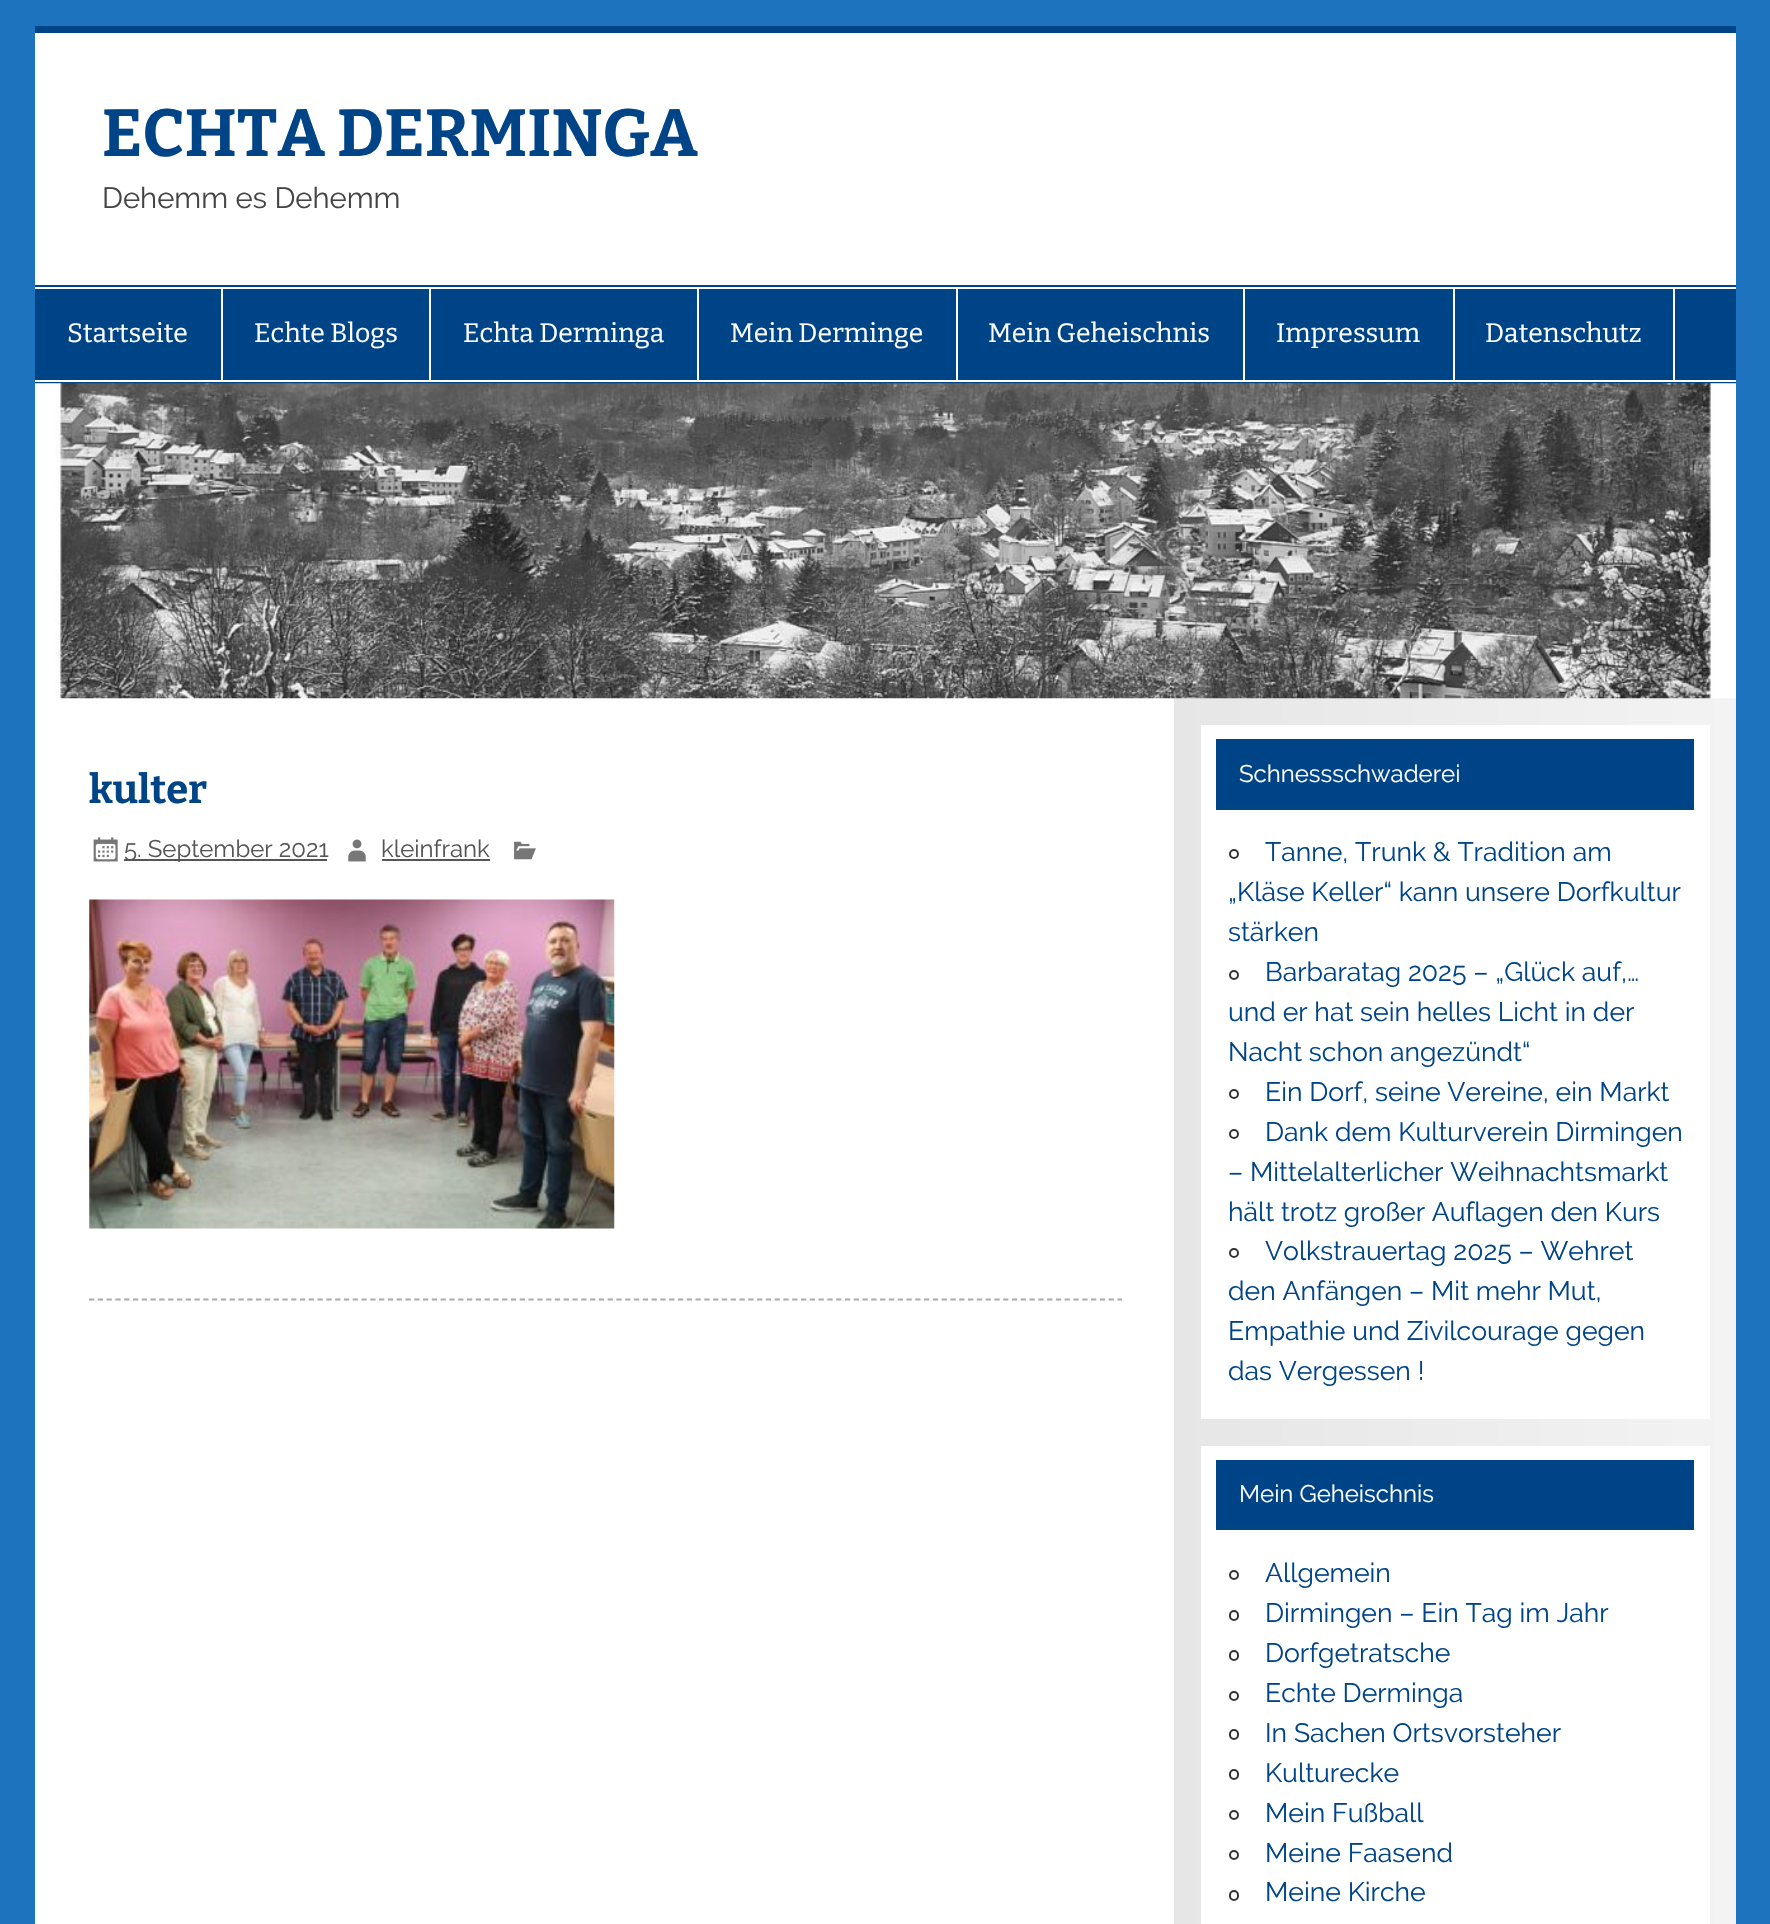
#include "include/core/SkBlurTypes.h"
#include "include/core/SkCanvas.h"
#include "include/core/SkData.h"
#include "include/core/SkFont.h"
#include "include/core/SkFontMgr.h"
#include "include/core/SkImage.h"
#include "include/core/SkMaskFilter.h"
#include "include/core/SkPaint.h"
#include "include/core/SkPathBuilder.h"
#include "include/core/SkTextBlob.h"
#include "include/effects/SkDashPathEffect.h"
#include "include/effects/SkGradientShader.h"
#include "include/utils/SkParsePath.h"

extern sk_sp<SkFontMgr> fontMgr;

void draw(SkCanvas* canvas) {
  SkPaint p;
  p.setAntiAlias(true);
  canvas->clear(SkColorSetRGB(30, 115, 190));
  p.setColor(SK_ColorWHITE);
  canvas->drawRect(SkRect::MakeLTRB(35, 33, 1736, 1924), p);
  p.setColor(SkColorSetRGB(0, 68, 136));
  canvas->drawRect(SkRect::MakeLTRB(35, 26, 1736, 33), p);
  canvas->drawRect(SkRect::MakeLTRB(35, 285, 1736, 287), p);
  canvas->drawRect(SkRect::MakeLTRB(35, 382, 1736, 384), p);
  canvas->drawRect(SkRect::MakeLTRB(35, 289, 1736, 380), p);
  p.setColor(SK_ColorWHITE);
  canvas->drawRect(SkRect::MakeLTRB(221, 289, 223, 380), p);
  canvas->drawRect(SkRect::MakeLTRB(429, 289, 431, 380), p);
  canvas->drawRect(SkRect::MakeLTRB(697, 289, 699, 380), p);
  canvas->drawRect(SkRect::MakeLTRB(956, 289, 958, 380), p);
  canvas->drawRect(SkRect::MakeLTRB(1243, 289, 1245, 380), p);
  canvas->drawRect(SkRect::MakeLTRB(1453, 289, 1455, 380), p);
  canvas->drawRect(SkRect::MakeLTRB(1673, 289, 1675, 380), p);
  {
    const SkColor colors[] = {SkColorSetRGB(230, 230, 230), SkColorSetRGB(243, 243, 243)};
    const float stops[] = {0, 1};
    const SkPoint ends[] = {{1174, 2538}, {1736, 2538}};
    p.setShader(SkGradientShader::MakeLinear(ends, colors, stops, 2, SkTileMode::kClamp));
    p.setAlpha(255);
  }
  canvas->drawRect(SkRect::MakeLTRB(1174, 698, 1736, 1924), p);
  canvas->drawImageRect(SkImages::DeferredFromEncodedData(SkData::MakeFromFileName("images/1.png")), SkRect::MakeLTRB(35, 383, 1736, 699), SkSamplingOptions());
  p.setStyle(SkPaint::kStroke_Style);
  p.setStrokeWidth(1.8f);
  p.setShader(nullptr);
  p.setColor(SkColorSetRGB(170, 170, 170));
  p.setPathEffect(SkDashPathEffect::Make({{5.25f, 3.54f}}, 0));
  canvas->drawPath(SkPathBuilder().moveTo(89, 1299.5f).lineTo(1122, 1299.5f).detach(), p);
  p.setPathEffect(nullptr);
  canvas->drawImageRect(SkImages::DeferredFromEncodedData(SkData::MakeFromFileName("images/2.png")), SkRect::MakeLTRB(93, 837, 118, 862), SkSamplingOptions());
  p.setStyle(SkPaint::kFill_Style);
  p.setColor(SkColorSetRGB(85, 85, 85));
  canvas->drawRect(SkRect::MakeLTRB(124, 859, 327, 861), p);
  canvas->drawImageRect(SkImages::DeferredFromEncodedData(SkData::MakeFromFileName("images/3.png")), SkRect::MakeLTRB(348, 839, 366, 862), SkSamplingOptions());
  canvas->drawRect(SkRect::MakeLTRB(382, 859, 490, 861), p);
  canvas->drawImageRect(SkImages::DeferredFromEncodedData(SkData::MakeFromFileName("images/4.png")), SkRect::MakeLTRB(514, 841, 536, 860), SkSamplingOptions());
  canvas->drawImageRect(SkImages::DeferredFromEncodedData(SkData::MakeFromFileName("images/5.png")), SkRect::MakeLTRB(89, 899, 615, 1229), SkSamplingOptions());
  p.setColor(SK_ColorWHITE);
  canvas->drawRect(SkRect::MakeLTRB(1201, 725, 1710, 1419), p);
  p.setColor(SkColorSetRGB(0, 68, 136));
  canvas->drawRect(SkRect::MakeLTRB(1216, 739, 1694, 810), p);
  p.setStyle(SkPaint::kStroke_Style);
  p.setStrokeWidth(2);
  p.setColor(SkColorSetRGB(51, 51, 51));
  canvas->drawCircle(1234, 854, 4, p);
  canvas->drawCircle(1234, 975, 4, p);
  canvas->drawCircle(1234, 1094, 4, p);
  canvas->drawCircle(1234, 1134, 4, p);
  canvas->drawCircle(1234, 1253, 4, p);
  p.setStyle(SkPaint::kFill_Style);
  p.setColor(SK_ColorWHITE);
  canvas->drawRect(SkRect::MakeLTRB(1201, 1446, 1710, 1924), p);
  p.setColor(SkColorSetRGB(0, 68, 136));
  canvas->drawRect(SkRect::MakeLTRB(1216, 1460, 1694, 1530), p);
  p.setStyle(SkPaint::kStroke_Style);
  p.setColor(SkColorSetRGB(51, 51, 51));
  canvas->drawCircle(1234, 1575, 4, p);
  canvas->drawRoundRect(SkRect::MakeLTRB(1230, 1611, 1238, 1620), 4, 4, p);
  canvas->drawRoundRect(SkRect::MakeLTRB(1230, 1651, 1238, 1660), 4, 4, p);
  canvas->drawCircle(1234, 1696, 4, p);
  canvas->drawRoundRect(SkRect::MakeLTRB(1230, 1730, 1238, 1739), 4, 4, p);
  canvas->drawRoundRect(SkRect::MakeLTRB(1230, 1770, 1238, 1779), 4, 4, p);
  canvas->drawCircle(1234, 1815, 4, p);
  canvas->drawCircle(1234, 1855, 4, p);
  canvas->drawRoundRect(SkRect::MakeLTRB(1230, 1891, 1238, 1900), 4, 4, p);
  SkFont font1(fontMgr->matchFamilyStyle("Bitter", SkFontStyle::Bold()), 66.5f);
  font1.setSubpixel(true);
  p.setStyle(SkPaint::kFill_Style);
  p.setColor(SkColorSetRGB(0, 68, 136));
  canvas->drawString("ECHTA DERMINGA", 102, 156, font1, p);
  SkFont font2(fontMgr->matchFamilyStyle("Raleway", SkFontStyle::Normal()), 29.25f);
  font2.setSubpixel(true);
  p.setColor(SkColorSetRGB(68, 68, 68));
  canvas->drawString("Dehemm es Dehemm", 102, 208, font2, p);
  SkFont font3(fontMgr->matchFamilyStyle("Bitter", SkFontStyle::Normal()), 26.6f);
  font3.setSubpixel(true);
  p.setColor(SK_ColorWHITE);
  canvas->drawString("Startseite", 67, 342, font3, p);
  canvas->drawString("Echte Blogs", 254, 342, font3, p);
  canvas->drawString("Echta Derminga", 463, 342, font3, p);
  canvas->drawString("Mein Derminge", 730, 342, font3, p);
  canvas->drawString("Mein Geheischnis", 988, 342, font3, p);
  canvas->drawString("Impressum", 1276, 342, font3, p);
  canvas->drawString("Datenschutz", 1485, 342, font3, p);
  SkFont font4(fontMgr->matchFamilyStyle("Bitter", SkFontStyle::Bold()), 40);
  font4.setSubpixel(true);
  p.setColor(SkColorSetRGB(0, 68, 136));
  canvas->drawString("kulter", 89, 803, font4, p);
  SkFont font5(fontMgr->matchFamilyStyle("Raleway", SkFontStyle::Normal()), 24);
  font5.setSubpixel(true);
  p.setColor(SkColorSetRGB(85, 85, 85));
  canvas->drawString("5. September 2021", 124, 857, font5, p);
  canvas->drawString("kleinfrank", 381, 857, font5, p);
  p.setColor(SK_ColorWHITE);
  canvas->drawString("Schnessschwaderei", 1239, 782, font5, p);
  SkFont font6(fontMgr->matchFamilyStyle("Raleway", SkFontStyle::Normal()), 26.6f);
  font6.setSubpixel(true);
  p.setColor(SkColorSetRGB(0, 68, 136));
  canvas->drawString("Tanne, Trunk & Tradition am", 1265, 861, font6, p);
  canvas->drawString("„Kläse Keller“ kann unsere Dorfkultur", 1228, 901, font6, p);
  canvas->drawString("stärken", 1228, 941, font6, p);
  canvas->drawString("Barbaratag 2025 – „Glück auf,…", 1265, 981, font6, p);
  canvas->drawString("und er hat sein helles Licht in der", 1228, 1021, font6, p);
  canvas->drawString("Nacht schon angezündt“", 1228, 1061, font6, p);
  canvas->drawString("Ein Dorf, seine Vereine, ein Markt", 1265, 1101, font6, p);
  canvas->drawString("Dank dem Kulturverein Dirmingen", 1265, 1141, font6, p);
  canvas->drawString("– Mittelalterlicher Weihnachtsmarkt", 1228, 1181, font6, p);
  canvas->drawString("hält trotz großer Auflagen den Kurs", 1228, 1221, font6, p);
  canvas->drawString("Volkstrauertag 2025 – Wehret", 1265, 1260, font6, p);
  canvas->drawString("den Anfängen – Mit mehr Mut,", 1228, 1300, font6, p);
  canvas->drawString("Empathie und Zivilcourage gegen", 1228, 1340, font6, p);
  canvas->drawString("das Vergessen !", 1228, 1380, font6, p);
  p.setColor(SK_ColorWHITE);
  canvas->drawString("Mein Geheischnis", 1239, 1502, font5, p);
  p.setColor(SkColorSetRGB(0, 68, 136));
  canvas->drawString("Allgemein", 1265, 1582, font6, p);
  canvas->drawString("Dirmingen – Ein Tag im Jahr", 1265, 1622, font6, p);
  canvas->drawString("Dorfgetratsche", 1265, 1662, font6, p);
  canvas->drawString("Echte Derminga", 1265, 1702, font6, p);
  canvas->drawString("In Sachen Ortsvorsteher", 1265, 1742, font6, p);
  canvas->drawString("Kulturecke", 1265, 1782, font6, p);
  canvas->drawString("Mein Fußball", 1265, 1822, font6, p);
  canvas->drawString("Meine Faasend", 1265, 1862, font6, p);
  canvas->drawString("Meine Kirche", 1265, 1901, font6, p);
}
